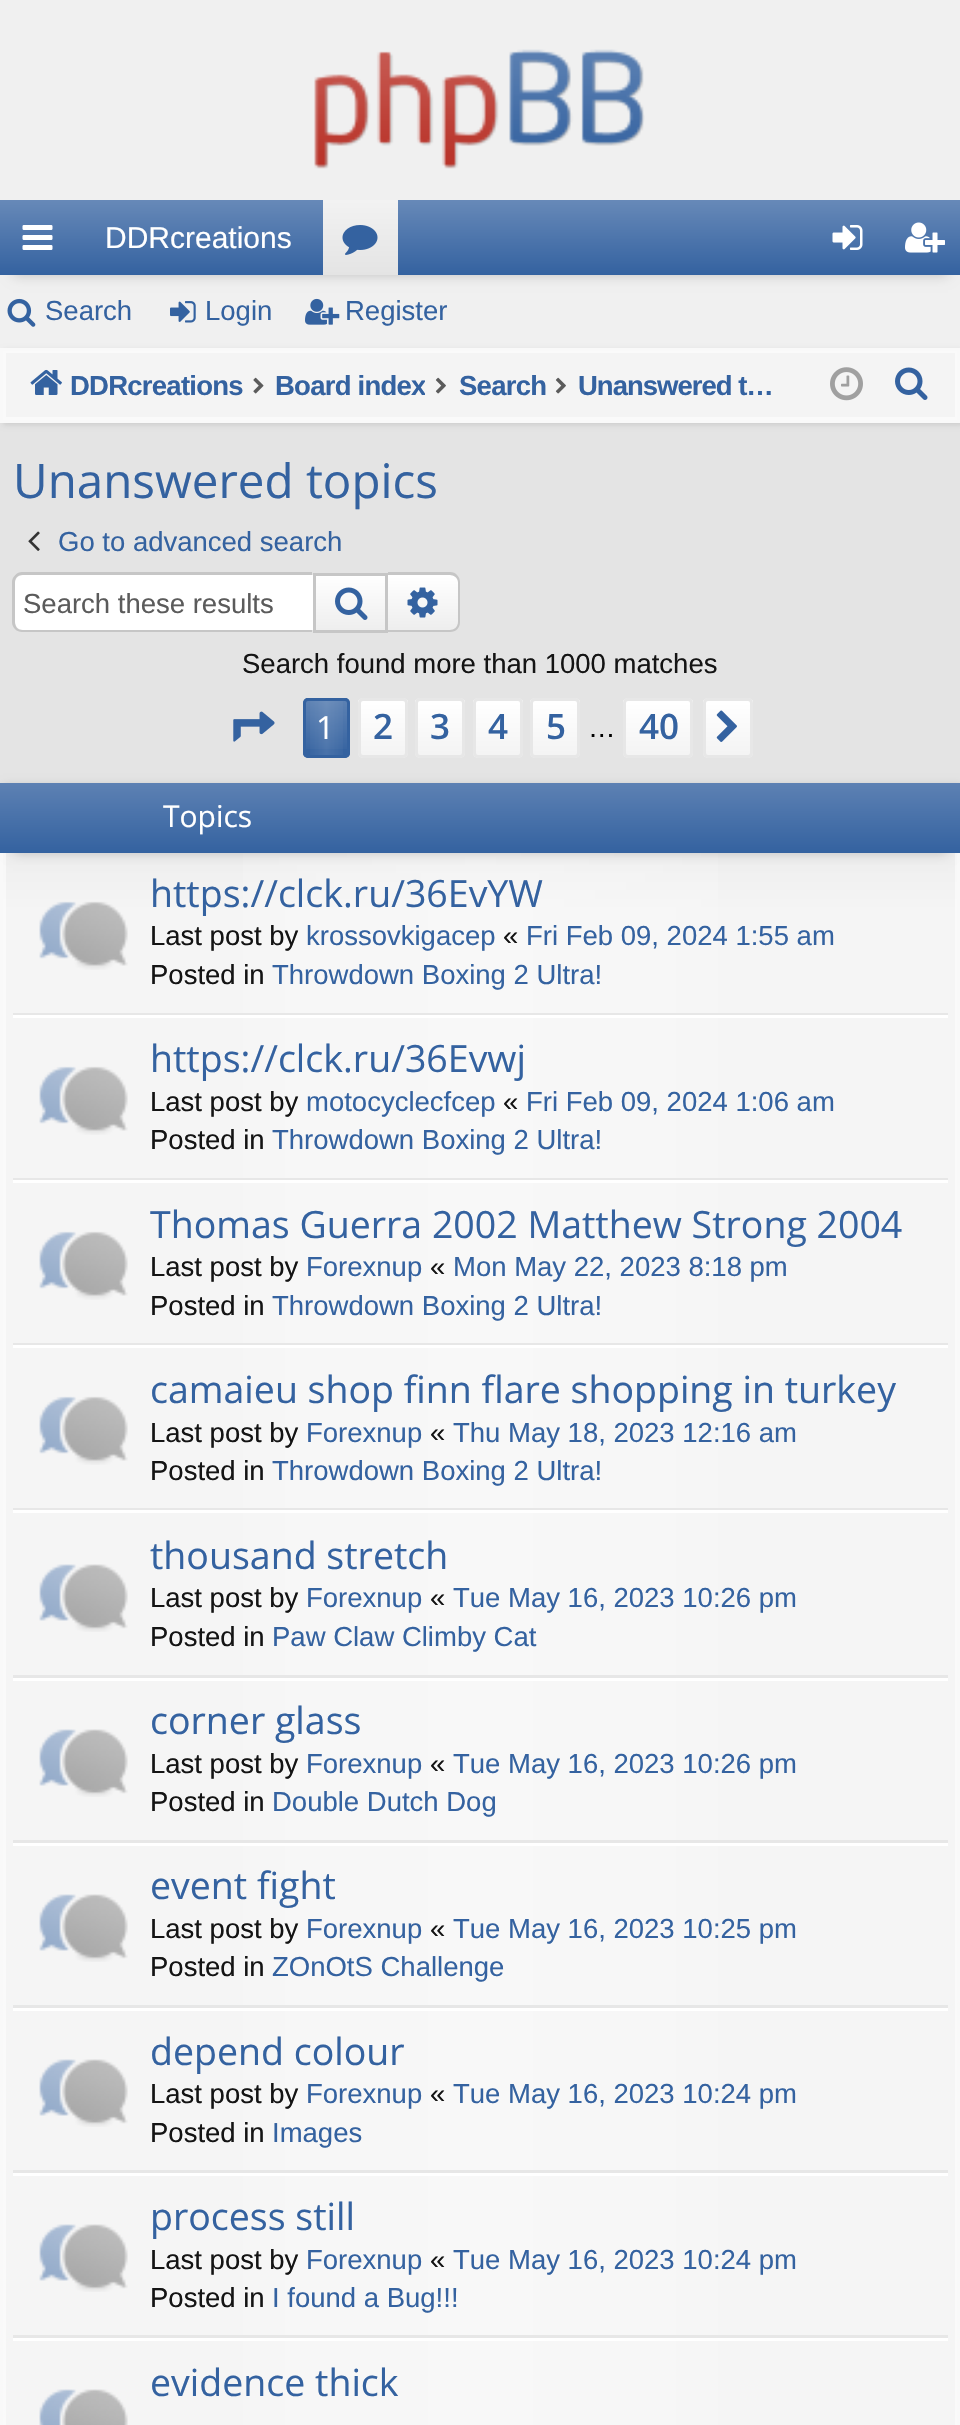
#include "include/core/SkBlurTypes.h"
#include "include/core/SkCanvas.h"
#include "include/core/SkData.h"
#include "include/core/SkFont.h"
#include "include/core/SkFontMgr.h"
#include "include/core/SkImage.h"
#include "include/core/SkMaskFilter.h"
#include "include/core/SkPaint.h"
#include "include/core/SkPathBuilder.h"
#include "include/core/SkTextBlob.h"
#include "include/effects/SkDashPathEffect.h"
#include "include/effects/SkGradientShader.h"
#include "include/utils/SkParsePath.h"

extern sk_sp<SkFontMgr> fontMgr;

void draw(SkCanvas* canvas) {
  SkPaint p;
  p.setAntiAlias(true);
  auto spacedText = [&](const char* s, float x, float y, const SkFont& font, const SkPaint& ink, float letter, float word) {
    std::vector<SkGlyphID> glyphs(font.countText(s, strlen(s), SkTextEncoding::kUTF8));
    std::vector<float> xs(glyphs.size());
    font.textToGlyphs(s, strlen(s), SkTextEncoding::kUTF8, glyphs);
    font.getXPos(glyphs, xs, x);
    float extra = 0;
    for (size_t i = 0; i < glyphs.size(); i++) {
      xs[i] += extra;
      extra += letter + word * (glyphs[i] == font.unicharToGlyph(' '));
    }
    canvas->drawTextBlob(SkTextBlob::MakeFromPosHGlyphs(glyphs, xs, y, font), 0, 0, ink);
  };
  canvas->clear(SkColorSetRGB(240, 240, 240));
  canvas->drawImageRect(SkImages::DeferredFromEncodedData(SkData::MakeFromFileName("images/1.png")), SkRect::MakeLTRB(314, 49, 645, 169), SkSamplingOptions());
  p.setColor(SkColorSetARGB(51, 0, 0, 0));
  p.setMaskFilter(SkMaskFilter::MakeBlur(kNormal_SkBlurStyle, 6));
  canvas->drawRect(SkRect::MakeLTRB(13, 225, 948, 275), p);
  p.setMaskFilter(nullptr);
  {
    const SkColor colors[] = {SkColorSetRGB(103, 137, 184), SkColorSetRGB(52, 98, 160)};
    const float stops[] = {0, 1};
    const SkPoint ends[] = {{480, 200}, {480, 275}};
    p.setShader(SkGradientShader::MakeLinear(ends, colors, stops, 2, SkTileMode::kClamp));
    p.setAlpha(255);
  }
  canvas->drawRect(SkRect::MakeLTRB(0, 200, 960, 275), p);
  canvas->drawImageRect(SkImages::DeferredFromEncodedData(SkData::MakeFromFileName("images/2.png")), SkRect::MakeLTRB(22, 225, 53, 250), SkSamplingOptions());
  {
    const SkColor colors[] = {SkColorSetRGB(242, 242, 242), SkColorSetRGB(228, 228, 228)};
    const float stops[] = {0, 1};
    const SkPoint ends[] = {{360, 200}, {360, 275}};
    p.setShader(SkGradientShader::MakeLinear(ends, colors, stops, 2, SkTileMode::kClamp));
    p.setAlpha(255);
  }
  canvas->drawRect(SkRect::MakeLTRB(323, 200, 398, 275), p);
  canvas->drawImageRect(SkImages::DeferredFromEncodedData(SkData::MakeFromFileName("images/3.png")), SkRect::MakeLTRB(342, 225, 378, 255), SkSamplingOptions());
  canvas->drawImageRect(SkImages::DeferredFromEncodedData(SkData::MakeFromFileName("images/4.png")), SkRect::MakeLTRB(832, 225, 863, 250), SkSamplingOptions());
  canvas->drawImageRect(SkImages::DeferredFromEncodedData(SkData::MakeFromFileName("images/5.png")), SkRect::MakeLTRB(905, 222, 945, 253), SkSamplingOptions());
  canvas->drawImageRect(SkImages::DeferredFromEncodedData(SkData::MakeFromFileName("images/6.png")), SkRect::MakeLTRB(7, 298, 36, 327), SkSamplingOptions());
  canvas->drawImageRect(SkImages::DeferredFromEncodedData(SkData::MakeFromFileName("images/7.png")), SkRect::MakeLTRB(170, 301, 196, 323), SkSamplingOptions());
  canvas->drawImageRect(SkImages::DeferredFromEncodedData(SkData::MakeFromFileName("images/8.png")), SkRect::MakeLTRB(305, 298, 340, 325), SkSamplingOptions());
  p.setShader(nullptr);
  p.setColor(SkColorSetRGB(228, 228, 228));
  canvas->drawRect(SkRect::MakeLTRB(0, 423, 960, 783), p);
  p.setColor(SkColorSetARGB(26, 0, 0, 0));
  p.setMaskFilter(SkMaskFilter::MakeBlur(kNormal_SkBlurStyle, 2.5f));
  canvas->drawRect(SkRect::MakeLTRB(3, 350, 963, 425), p);
  p.setMaskFilter(nullptr);
  p.setColor(SkColorSetRGB(244, 244, 244));
  canvas->drawRect(SkRect::MakeLTRB(4.5f, 351.5f, 956.5f, 418.5f), p);
  p.setStyle(SkPaint::kStroke_Style);
  p.setStrokeWidth(3);
  p.setColor(SkColorSetRGB(250, 250, 250));
  canvas->drawRect(SkRect::MakeLTRB(4.5f, 351.5f, 956.5f, 418.5f), p);
  p.setColor(SkColorSetRGB(249, 249, 249));
  canvas->drawRect(SkRect::MakeLTRB(1.5f, 349.5f, 958.5f, 421.5f), p);
  canvas->drawImageRect(SkImages::DeferredFromEncodedData(SkData::MakeFromFileName("images/9.png")), SkRect::MakeLTRB(30, 369, 62, 395), SkSamplingOptions());
  canvas->drawImageRect(SkImages::DeferredFromEncodedData(SkData::MakeFromFileName("images/10.png")), SkRect::MakeLTRB(253, 377, 264, 394), SkSamplingOptions());
  canvas->drawImageRect(SkImages::DeferredFromEncodedData(SkData::MakeFromFileName("images/11.png")), SkRect::MakeLTRB(435, 377, 446, 394), SkSamplingOptions());
  canvas->drawImageRect(SkImages::DeferredFromEncodedData(SkData::MakeFromFileName("images/11.png")), SkRect::MakeLTRB(555, 377, 566, 394), SkSamplingOptions());
  canvas->drawImageRect(SkImages::DeferredFromEncodedData(SkData::MakeFromFileName("images/12.png")), SkRect::MakeLTRB(830, 367, 863, 401), SkSamplingOptions());
  canvas->drawImageRect(SkImages::DeferredFromEncodedData(SkData::MakeFromFileName("images/13.png")), SkRect::MakeLTRB(895, 367, 928, 400), SkSamplingOptions());
  canvas->drawImageRect(SkImages::DeferredFromEncodedData(SkData::MakeFromFileName("images/14.png")), SkRect::MakeLTRB(28, 531, 40, 551), SkSamplingOptions());
  p.setStyle(SkPaint::kFill_Style);
  p.setColor(SK_ColorWHITE);
  canvas->drawPath(SkPathBuilder().moveTo(23, 575).lineTo(313, 575).lineTo(313, 630).lineTo(23, 630).cubicTo(18.5f, 630, 15, 626.5f, 15, 622).lineTo(15, 583).cubicTo(15, 578.5f, 18.5f, 575, 23, 575).close().detach(), p);
  p.setColor(SkColorSetRGB(198, 198, 198));
  canvas->drawPath(SkPathBuilder(SkPathFillType::kEvenOdd).moveTo(22, 572).lineTo(312, 572).lineTo(312, 632).lineTo(22, 632).cubicTo(17, 632, 12, 628, 12, 622).lineTo(12, 582).cubicTo(12, 577, 17, 572, 22, 572).close().moveTo(22, 575).lineTo(312, 575).lineTo(312, 630).lineTo(22, 630).cubicTo(18, 630, 15, 627, 15, 622).lineTo(15, 582).cubicTo(15, 578, 18, 575, 22, 575).close().detach(), p);
  {
    const SkColor colors[] = {SK_ColorWHITE, SkColorSetRGB(238, 238, 238)};
    const float stops[] = {0, 1};
    const SkPoint ends[] = {{350, 575}, {350, 630}};
    p.setShader(SkGradientShader::MakeLinear(ends, colors, stops, 2, SkTileMode::kClamp));
    p.setAlpha(255);
  }
  canvas->drawRect(SkRect::MakeLTRB(316, 576, 385, 630), p);
  p.setStyle(SkPaint::kStroke_Style);
  p.setShader(nullptr);
  p.setColor(SkColorSetRGB(198, 198, 198));
  canvas->drawRect(SkRect::MakeLTRB(314.5f, 574.5f, 386.5f, 631.5f), p);
  canvas->drawImageRect(SkImages::DeferredFromEncodedData(SkData::MakeFromFileName("images/15.png")), SkRect::MakeLTRB(335, 587, 368, 620), SkSamplingOptions());
  p.setStyle(SkPaint::kFill_Style);
  p.setColor(SkColorSetRGB(238, 238, 238));
  canvas->drawPath(SkPathBuilder().moveTo(388, 575).lineTo(450, 575).cubicTo(454.5f, 575, 458, 578.5f, 458, 583).lineTo(458, 622).cubicTo(458, 626.5f, 454.5f, 630, 450, 630).lineTo(388, 630).close().detach(), p);
  {
    const SkColor colors[] = {SK_ColorWHITE, SkColorSetARGB(0, 255, 255, 255)};
    const float stops[] = {0, 1};
    const SkPoint ends[] = {{423, 575}, {423, 630}};
    p.setShader(SkGradientShader::MakeLinear(ends, colors, stops, 2, SkTileMode::kClamp));
    p.setAlpha(255);
  }
  canvas->drawPath(SkPathBuilder().moveTo(388, 575).lineTo(450, 575).cubicTo(454.5f, 575, 458, 578.5f, 458, 583).lineTo(458, 622).cubicTo(458, 626.5f, 454.5f, 630, 450, 630).lineTo(388, 630).close().detach(), p);
  p.setShader(nullptr);
  p.setColor(SkColorSetRGB(198, 198, 198));
  canvas->drawPath(SkPathBuilder(SkPathFillType::kEvenOdd).moveTo(388, 572).lineTo(450, 572).cubicTo(456, 572, 460, 577, 460, 582).lineTo(460, 622).cubicTo(460, 628, 456, 632, 450, 632).lineTo(388, 632).close().moveTo(388, 575).lineTo(450, 575).cubicTo(454, 575, 458, 578, 458, 582).lineTo(458, 622).cubicTo(458, 627, 454, 630, 450, 630).lineTo(388, 630).close().detach(), p);
  canvas->drawImageRect(SkImages::DeferredFromEncodedData(SkData::MakeFromFileName("images/16.png")), SkRect::MakeLTRB(407, 587, 438, 618), SkSamplingOptions());
  canvas->drawImageRect(SkImages::DeferredFromEncodedData(SkData::MakeFromFileName("images/17.png")), SkRect::MakeLTRB(233, 711, 275, 742), SkSamplingOptions());
  p.setColor(SkColorSetRGB(52, 98, 160));
  canvas->drawRoundRect(SkRect::MakeLTRB(303, 698, 350, 758), 5, 5, p);
  {
    const SkColor colors[] = {SkColorSetARGB(0, 255, 255, 255), SkColorSetARGB(26, 255, 255, 255), SkColorSetARGB(0, 255, 255, 255)};
    const float stops[] = {0, 0.5f, 1};
    const SkPoint ends[] = {{305, 728}, {348, 728}};
    p.setShader(SkGradientShader::MakeLinear(ends, colors, stops, 3, SkTileMode::kClamp));
    p.setAlpha(255);
  }
  canvas->drawRect(SkRect::MakeLTRB(310, 701, 343, 755), p);
  {
    const SkColor colors[] = {SkColorSetARGB(51, 255, 255, 255), SkColorSetARGB(0, 255, 255, 255)};
    const float stops[] = {0, 1};
    const SkPoint ends[] = {{326, 700}, {326, 755}};
    p.setShader(SkGradientShader::MakeLinear(ends, colors, stops, 2, SkTileMode::kClamp));
    p.setAlpha(255);
  }
  canvas->drawRect(SkRect::MakeLTRB(303, 700, 350, 749), p);
  p.setStyle(SkPaint::kStroke_Style);
  p.setShader(nullptr);
  p.setColor(SkColorSetRGB(52, 98, 160));
  canvas->drawRoundRect(SkRect::MakeLTRB(304.5f, 699.5f, 348.5f, 756.5f), 3.5f, 3.5f, p);
  p.setStyle(SkPaint::kFill_Style);
  p.setColor(SkColorSetRGB(244, 244, 244));
  canvas->drawRoundRect(SkRect::MakeLTRB(358, 698, 408, 758), 5, 5, p);
  canvas->save();
  canvas->clipPath(SkPathBuilder().moveTo(363, 698).lineTo(403, 698).cubicTo(406, 698, 408, 700, 408, 703).lineTo(408, 753).cubicTo(408, 756, 406, 758, 403, 758).lineTo(363, 758).cubicTo(360, 758, 358, 756, 358, 753).lineTo(358, 703).cubicTo(358, 700, 360, 698, 363, 698).close().detach(), true);
  {
    const SkColor colors[] = {SK_ColorWHITE, SkColorSetARGB(0, 255, 255, 255)};
    const float stops[] = {0, 1};
    const SkPoint ends[] = {{383, 700}, {383, 755}};
    p.setShader(SkGradientShader::MakeLinear(ends, colors, stops, 2, SkTileMode::kClamp));
    p.setAlpha(255);
  }
  canvas->drawRect(SkRect::MakeLTRB(358, 700, 408, 754), p);
  canvas->restore();
  p.setStyle(SkPaint::kStroke_Style);
  p.setShader(nullptr);
  p.setColor(SkColorSetRGB(231, 231, 231));
  canvas->drawRoundRect(SkRect::MakeLTRB(359.5f, 699.5f, 406.5f, 756.5f), 3.5f, 3.5f, p);
  p.setStyle(SkPaint::kFill_Style);
  p.setColor(SkColorSetRGB(244, 244, 244));
  canvas->drawRoundRect(SkRect::MakeLTRB(415, 698, 465, 758), 5, 5, p);
  canvas->save();
  canvas->clipPath(SkPathBuilder().moveTo(420, 698).lineTo(460, 698).cubicTo(463, 698, 465, 700, 465, 703).lineTo(465, 753).cubicTo(465, 756, 463, 758, 460, 758).lineTo(420, 758).cubicTo(417, 758, 415, 756, 415, 753).lineTo(415, 703).cubicTo(415, 700, 417, 698, 420, 698).close().detach(), true);
  {
    const SkColor colors[] = {SK_ColorWHITE, SkColorSetARGB(0, 255, 255, 255)};
    const float stops[] = {0, 1};
    const SkPoint ends[] = {{440, 700}, {440, 755}};
    p.setShader(SkGradientShader::MakeLinear(ends, colors, stops, 2, SkTileMode::kClamp));
    p.setAlpha(255);
  }
  canvas->drawRect(SkRect::MakeLTRB(415, 700, 465, 754), p);
  canvas->restore();
  p.setStyle(SkPaint::kStroke_Style);
  p.setShader(nullptr);
  p.setColor(SkColorSetRGB(231, 231, 231));
  canvas->drawRoundRect(SkRect::MakeLTRB(416.5f, 699.5f, 463.5f, 756.5f), 3.5f, 3.5f, p);
  p.setStyle(SkPaint::kFill_Style);
  p.setColor(SkColorSetRGB(244, 244, 244));
  canvas->drawRoundRect(SkRect::MakeLTRB(473, 698, 523, 758), 5, 5, p);
  canvas->save();
  canvas->clipPath(SkPathBuilder().moveTo(478, 698).lineTo(518, 698).cubicTo(521, 698, 523, 700, 523, 703).lineTo(523, 753).cubicTo(523, 756, 521, 758, 518, 758).lineTo(478, 758).cubicTo(475, 758, 473, 756, 473, 753).lineTo(473, 703).cubicTo(473, 700, 475, 698, 478, 698).close().detach(), true);
  {
    const SkColor colors[] = {SK_ColorWHITE, SkColorSetARGB(0, 255, 255, 255)};
    const float stops[] = {0, 1};
    const SkPoint ends[] = {{498, 700}, {498, 755}};
    p.setShader(SkGradientShader::MakeLinear(ends, colors, stops, 2, SkTileMode::kClamp));
    p.setAlpha(255);
  }
  canvas->drawRect(SkRect::MakeLTRB(473, 700, 523, 754), p);
  canvas->restore();
  p.setStyle(SkPaint::kStroke_Style);
  p.setShader(nullptr);
  p.setColor(SkColorSetRGB(231, 231, 231));
  canvas->drawRoundRect(SkRect::MakeLTRB(474.5f, 699.5f, 521.5f, 756.5f), 3.5f, 3.5f, p);
  p.setStyle(SkPaint::kFill_Style);
  p.setColor(SkColorSetRGB(244, 244, 244));
  canvas->drawRoundRect(SkRect::MakeLTRB(530, 698, 580, 758), 5, 5, p);
  canvas->save();
  canvas->clipPath(SkPathBuilder().moveTo(535, 698).lineTo(575, 698).cubicTo(578, 698, 580, 700, 580, 703).lineTo(580, 753).cubicTo(580, 756, 578, 758, 575, 758).lineTo(535, 758).cubicTo(532, 758, 530, 756, 530, 753).lineTo(530, 703).cubicTo(530, 700, 532, 698, 535, 698).close().detach(), true);
  {
    const SkColor colors[] = {SK_ColorWHITE, SkColorSetARGB(0, 255, 255, 255)};
    const float stops[] = {0, 1};
    const SkPoint ends[] = {{555, 700}, {555, 755}};
    p.setShader(SkGradientShader::MakeLinear(ends, colors, stops, 2, SkTileMode::kClamp));
    p.setAlpha(255);
  }
  canvas->drawRect(SkRect::MakeLTRB(530, 700, 580, 754), p);
  canvas->restore();
  p.setStyle(SkPaint::kStroke_Style);
  p.setShader(nullptr);
  p.setColor(SkColorSetRGB(231, 231, 231));
  canvas->drawRoundRect(SkRect::MakeLTRB(531.5f, 699.5f, 578.5f, 756.5f), 3.5f, 3.5f, p);
  p.setStyle(SkPaint::kFill_Style);
  p.setColor(SkColorSetRGB(244, 244, 244));
  canvas->drawRoundRect(SkRect::MakeLTRB(623, 698, 693, 758), 5, 5, p);
  canvas->save();
  canvas->clipPath(SkPathBuilder().moveTo(628, 698).lineTo(688, 698).cubicTo(691, 698, 693, 700, 693, 703).lineTo(693, 753).cubicTo(693, 756, 691, 758, 688, 758).lineTo(628, 758).cubicTo(625, 758, 623, 756, 623, 753).lineTo(623, 703).cubicTo(623, 700, 625, 698, 628, 698).close().detach(), true);
  {
    const SkColor colors[] = {SK_ColorWHITE, SkColorSetARGB(0, 255, 255, 255)};
    const float stops[] = {0, 1};
    const SkPoint ends[] = {{658, 700}, {658, 755}};
    p.setShader(SkGradientShader::MakeLinear(ends, colors, stops, 2, SkTileMode::kClamp));
    p.setAlpha(255);
  }
  canvas->drawRect(SkRect::MakeLTRB(623, 700, 693, 754), p);
  canvas->restore();
  p.setStyle(SkPaint::kStroke_Style);
  p.setShader(nullptr);
  p.setColor(SkColorSetRGB(231, 231, 231));
  canvas->drawRoundRect(SkRect::MakeLTRB(624.5f, 699.5f, 691.5f, 756.5f), 3.5f, 3.5f, p);
  p.setStyle(SkPaint::kFill_Style);
  p.setColor(SkColorSetRGB(244, 244, 244));
  canvas->drawRoundRect(SkRect::MakeLTRB(703, 698, 753, 758), 5, 5, p);
  canvas->save();
  canvas->clipPath(SkPathBuilder().moveTo(708, 698).lineTo(748, 698).cubicTo(751, 698, 753, 700, 753, 703).lineTo(753, 753).cubicTo(753, 756, 751, 758, 748, 758).lineTo(708, 758).cubicTo(705, 758, 703, 756, 703, 753).lineTo(703, 703).cubicTo(703, 700, 705, 698, 708, 698).close().detach(), true);
  {
    const SkColor colors[] = {SK_ColorWHITE, SkColorSetARGB(0, 255, 255, 255)};
    const float stops[] = {0, 1};
    const SkPoint ends[] = {{728, 700}, {728, 755}};
    p.setShader(SkGradientShader::MakeLinear(ends, colors, stops, 2, SkTileMode::kClamp));
    p.setAlpha(255);
  }
  canvas->drawRect(SkRect::MakeLTRB(703, 700, 753, 754), p);
  canvas->restore();
  p.setStyle(SkPaint::kStroke_Style);
  p.setShader(nullptr);
  p.setColor(SkColorSetRGB(231, 231, 231));
  canvas->drawRoundRect(SkRect::MakeLTRB(704.5f, 699.5f, 751.5f, 756.5f), 3.5f, 3.5f, p);
  canvas->drawImageRect(SkImages::DeferredFromEncodedData(SkData::MakeFromFileName("images/18.png")), SkRect::MakeLTRB(716, 710, 737, 742), SkSamplingOptions());
  p.setStyle(SkPaint::kFill_Style);
  p.setColor(SkColorSetARGB(38, 0, 0, 0));
  p.setMaskFilter(SkMaskFilter::MakeBlur(kNormal_SkBlurStyle, 4));
  canvas->drawRect(SkRect::MakeLTRB(3, 785, 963, 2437), p);
  p.setMaskFilter(nullptr);
  {
    const SkColor colors[] = {SkColorSetRGB(237, 237, 237), SkColorSetRGB(235, 235, 235), SkColorSetRGB(245, 245, 245)};
    const float stops[] = {0, 0.01f, 0.03f};
    const SkPoint ends[] = {{480, 785}, {480, 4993}};
    p.setShader(SkGradientShader::MakeLinear(ends, colors, stops, 3, SkTileMode::kClamp));
    p.setAlpha(255);
  }
  canvas->drawRect(SkRect::MakeLTRB(3, 853, 957, 2425), p);
  {
    const SkColor colors[] = {SkColorSetARGB(0, 255, 255, 255), SkColorSetARGB(77, 255, 255, 255), SkColorSetARGB(0, 255, 255, 255)};
    const float stops[] = {0, 0.5f, 1};
    const SkPoint ends[] = {{2.5f, 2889}, {958, 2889}};
    p.setShader(SkGradientShader::MakeLinear(ends, colors, stops, 3, SkTileMode::kClamp));
    p.setAlpha(255);
  }
  canvas->drawRect(SkRect::MakeLTRB(243, 853, 718, 2425), p);
  p.setStyle(SkPaint::kStroke_Style);
  p.setShader(nullptr);
  p.setColor(SkColorSetARGB(128, 255, 255, 255));
  canvas->drawRect(SkRect::MakeLTRB(4.5f, 786.5f, 956.5f, 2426.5f), p);
  p.setColor(SkColorSetRGB(249, 249, 249));
  canvas->drawRect(SkRect::MakeLTRB(1.5f, 784.5f, 958.5f, 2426.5f), p);
  p.setStyle(SkPaint::kFill_Style);
  p.setColor(SkColorSetARGB(51, 0, 0, 0));
  p.setMaskFilter(SkMaskFilter::MakeBlur(kNormal_SkBlurStyle, 6));
  canvas->drawRect(SkRect::MakeLTRB(13, 808, 948, 853), p);
  p.setMaskFilter(nullptr);
  {
    const SkColor colors[] = {SkColorSetRGB(93, 129, 179), SkColorSetRGB(52, 98, 160)};
    const float stops[] = {0, 1};
    const SkPoint ends[] = {{480, 783}, {480, 853}};
    p.setShader(SkGradientShader::MakeLinear(ends, colors, stops, 2, SkTileMode::kClamp));
    p.setAlpha(255);
  }
  canvas->drawRect(SkRect::MakeLTRB(0, 783, 960, 853), p);
  p.setShader(nullptr);
  p.setColor(SkColorSetRGB(231, 231, 231));
  canvas->drawRect(SkRect::MakeLTRB(13, 1013, 948, 1015), p);
  canvas->drawImageRect(SkImages::DeferredFromEncodedData(SkData::MakeFromFileName("images/19.png")), SkRect::MakeLTRB(39, 901, 128, 970), SkSamplingOptions());
  p.setColor(SK_ColorWHITE);
  canvas->drawRect(SkRect::MakeLTRB(13, 1015, 948, 1018), p);
  p.setColor(SkColorSetRGB(231, 231, 231));
  canvas->drawRect(SkRect::MakeLTRB(13, 1178, 948, 1180), p);
  canvas->drawImageRect(SkImages::DeferredFromEncodedData(SkData::MakeFromFileName("images/20.png")), SkRect::MakeLTRB(39, 1066, 128, 1135), SkSamplingOptions());
  p.setColor(SK_ColorWHITE);
  canvas->drawRect(SkRect::MakeLTRB(13, 1180, 948, 1183), p);
  p.setColor(SkColorSetRGB(231, 231, 231));
  canvas->drawRect(SkRect::MakeLTRB(13, 1343, 948, 1345), p);
  canvas->drawImageRect(SkImages::DeferredFromEncodedData(SkData::MakeFromFileName("images/20.png")), SkRect::MakeLTRB(39, 1231, 128, 1300), SkSamplingOptions());
  p.setColor(SK_ColorWHITE);
  canvas->drawRect(SkRect::MakeLTRB(13, 1345, 948, 1348), p);
  p.setColor(SkColorSetRGB(231, 231, 231));
  canvas->drawRect(SkRect::MakeLTRB(13, 1508, 948, 1510), p);
  canvas->drawImageRect(SkImages::DeferredFromEncodedData(SkData::MakeFromFileName("images/20.png")), SkRect::MakeLTRB(39, 1396, 128, 1465), SkSamplingOptions());
  p.setColor(SK_ColorWHITE);
  canvas->drawRect(SkRect::MakeLTRB(13, 1510, 948, 1513), p);
  p.setColor(SkColorSetRGB(231, 231, 231));
  canvas->drawRect(SkRect::MakeLTRB(13, 1675, 948, 1678), p);
  canvas->drawImageRect(SkImages::DeferredFromEncodedData(SkData::MakeFromFileName("images/21.png")), SkRect::MakeLTRB(39, 1564, 128, 1632), SkSamplingOptions());
  p.setColor(SK_ColorWHITE);
  canvas->drawRect(SkRect::MakeLTRB(13, 1678, 948, 1681), p);
  p.setColor(SkColorSetRGB(231, 231, 231));
  canvas->drawRect(SkRect::MakeLTRB(13, 1840, 948, 1843), p);
  canvas->drawImageRect(SkImages::DeferredFromEncodedData(SkData::MakeFromFileName("images/22.png")), SkRect::MakeLTRB(39, 1729, 128, 1797), SkSamplingOptions());
  p.setColor(SK_ColorWHITE);
  canvas->drawRect(SkRect::MakeLTRB(13, 1843, 948, 1846), p);
  p.setColor(SkColorSetRGB(231, 231, 231));
  canvas->drawRect(SkRect::MakeLTRB(13, 2005, 948, 2008), p);
  canvas->drawImageRect(SkImages::DeferredFromEncodedData(SkData::MakeFromFileName("images/22.png")), SkRect::MakeLTRB(39, 1894, 128, 1962), SkSamplingOptions());
  p.setColor(SK_ColorWHITE);
  canvas->drawRect(SkRect::MakeLTRB(13, 2008, 948, 2011), p);
  p.setColor(SkColorSetRGB(231, 231, 231));
  canvas->drawRect(SkRect::MakeLTRB(13, 2170, 948, 2173), p);
  canvas->drawImageRect(SkImages::DeferredFromEncodedData(SkData::MakeFromFileName("images/23.png")), SkRect::MakeLTRB(39, 2059, 128, 2127), SkSamplingOptions());
  p.setColor(SK_ColorWHITE);
  canvas->drawRect(SkRect::MakeLTRB(13, 2173, 948, 2176), p);
  p.setColor(SkColorSetRGB(231, 231, 231));
  canvas->drawRect(SkRect::MakeLTRB(13, 2335, 948, 2338), p);
  canvas->drawImageRect(SkImages::DeferredFromEncodedData(SkData::MakeFromFileName("images/22.png")), SkRect::MakeLTRB(39, 2224, 128, 2292), SkSamplingOptions());
  p.setColor(SK_ColorWHITE);
  canvas->drawRect(SkRect::MakeLTRB(13, 2338, 948, 2341), p);
  canvas->drawImageRect(SkImages::DeferredFromEncodedData(SkData::MakeFromFileName("images/24.png")), SkRect::MakeLTRB(39, 2389, 128, 2425), SkSamplingOptions());
  SkFont font1(fontMgr->matchFamilyStyle("Liberation Sans", SkFontStyle::Normal()), 30);
  font1.setSubpixel(true);
  canvas->drawString("DDRcreations", 105, 248, font1, p);
  SkFont font2(fontMgr->matchFamilyStyle("Liberation Sans", SkFontStyle::Normal()), 27.5f);
  font2.setSubpixel(true);
  p.setColor(SkColorSetRGB(52, 98, 160));
  canvas->drawString("Search", 45, 320, font2, p);
  canvas->drawString("Login", 205, 320, font2, p);
  canvas->drawString("Register", 345, 320, font2, p);
  SkFont font3(fontMgr->matchFamilyStyle("Liberation Sans", SkFontStyle::Bold()), 27.5f);
  font3.setSubpixel(true);
  spacedText("DDRcreations", 70, 395, font3, p, -0.75f, 0);
  canvas->save();
  canvas->clipRect(SkRect::MakeLTRB(275, 358, 425, 413));
  spacedText("Board index", 275, 395, font3, p, -0.75f, 0);
  canvas->restore();
  spacedText("Search", 459, 395, font3, p, -0.75f, 0);
  spacedText("Unanswered t…", 578, 395, font3, p, -1, 0);
  SkFont font4(fontMgr->matchFamilyStyle("Open Sans", SkFontStyle::Normal()), 47.5f);
  font4.setSubpixel(true);
  canvas->drawString("Unanswered topics", 13, 498, font4, p);
  canvas->drawString("Go to advanced search", 58, 551, font2, p);
  p.setColor(SkColorSetRGB(91, 91, 91));
  canvas->drawString("Search these results", 23, 613, font2, p);
  p.setColor(SkColorSetRGB(20, 20, 20));
  canvas->drawString("Search found more than 1000 matches", 242, 673, font2, p);
  SkFont font5(fontMgr->matchFamilyStyle("Open Sans", SkFontStyle::Normal()), 32);
  font5.setSubpixel(true);
  p.setColor(SK_ColorWHITE);
  canvas->drawString("1", 316, 739, font5, p);
  SkFont font6(fontMgr->matchFamilyStyle("Open Sans", SkFontStyle(600, SkFontStyle::kNormal_Width, SkFontStyle::kUpright_Slant)), 35);
  font6.setSubpixel(true);
  p.setColor(SkColorSetRGB(52, 98, 160));
  canvas->drawString("2", 373, 739, font6, p);
  canvas->drawString("3", 430, 739, font6, p);
  canvas->drawString("4", 488, 739, font6, p);
  canvas->drawString("5", 546, 739, font6, p);
  p.setColor(SK_ColorBLACK);
  canvas->drawString("…", 588, 737, font2, p);
  p.setColor(SkColorSetRGB(52, 98, 160));
  canvas->drawString("40", 639, 739, font6, p);
  SkFont font7(fontMgr->matchFamilyStyle("Open Sans", SkFontStyle::Normal()), 30);
  font7.setSubpixel(true);
  p.setColor(SK_ColorWHITE);
  canvas->drawString("Topics", 163, 827, font7, p);
  SkFont font8(fontMgr->matchFamilyStyle("Open Sans", SkFontStyle::Normal()), 37.5f);
  font8.setSubpixel(true);
  p.setColor(SkColorSetRGB(52, 98, 160));
  canvas->drawString("https://clck.ru/36EvYW", 150, 907, font8, p);
  p.setColor(SkColorSetRGB(20, 20, 20));
  canvas->drawString("Last post by", 150, 945, font2, p);
  p.setColor(SkColorSetRGB(52, 98, 160));
  canvas->drawString("krossovkigacep", 306, 945, font2, p);
  p.setColor(SkColorSetRGB(20, 20, 20));
  canvas->drawString("«", 503, 945, font2, p);
  p.setColor(SkColorSetRGB(52, 98, 160));
  canvas->drawString("Fri Feb 09, 2024 1:55 am", 526, 945, font2, p);
  p.setColor(SkColorSetRGB(20, 20, 20));
  canvas->drawString("Posted in", 150, 984, font2, p);
  p.setColor(SkColorSetRGB(52, 98, 160));
  canvas->drawString("Throwdown Boxing 2 Ultra!", 272, 984, font2, p);
  canvas->drawString("https://clck.ru/36Evwj", 150, 1072, font8, p);
  p.setColor(SkColorSetRGB(20, 20, 20));
  canvas->drawString("Last post by", 150, 1111, font2, p);
  p.setColor(SkColorSetRGB(52, 98, 160));
  canvas->drawString("motocyclecfcep", 306, 1111, font2, p);
  p.setColor(SkColorSetRGB(20, 20, 20));
  canvas->drawString("«", 503, 1111, font2, p);
  p.setColor(SkColorSetRGB(52, 98, 160));
  canvas->drawString("Fri Feb 09, 2024 1:06 am", 526, 1111, font2, p);
  p.setColor(SkColorSetRGB(20, 20, 20));
  canvas->drawString("Posted in", 150, 1149, font2, p);
  p.setColor(SkColorSetRGB(52, 98, 160));
  canvas->drawString("Throwdown Boxing 2 Ultra!", 272, 1149, font2, p);
  canvas->drawString("Thomas Guerra 2002 Matthew Strong 2004", 150, 1238, font8, p);
  p.setColor(SkColorSetRGB(20, 20, 20));
  canvas->drawString("Last post by", 150, 1276, font2, p);
  p.setColor(SkColorSetRGB(52, 98, 160));
  canvas->drawString("Forexnup", 306, 1276, font2, p);
  p.setColor(SkColorSetRGB(20, 20, 20));
  canvas->drawString("«", 430, 1276, font2, p);
  p.setColor(SkColorSetRGB(52, 98, 160));
  canvas->drawString("Mon May 22, 2023 8:18 pm", 453, 1276, font2, p);
  p.setColor(SkColorSetRGB(20, 20, 20));
  canvas->drawString("Posted in", 150, 1315, font2, p);
  p.setColor(SkColorSetRGB(52, 98, 160));
  canvas->drawString("Throwdown Boxing 2 Ultra!", 272, 1315, font2, p);
  canvas->drawString("camaieu shop finn flare shopping in turkey", 150, 1403, font8, p);
  p.setColor(SkColorSetRGB(20, 20, 20));
  canvas->drawString("Last post by", 150, 1442, font2, p);
  p.setColor(SkColorSetRGB(52, 98, 160));
  canvas->drawString("Forexnup", 306, 1442, font2, p);
  p.setColor(SkColorSetRGB(20, 20, 20));
  canvas->drawString("«", 430, 1442, font2, p);
  p.setColor(SkColorSetRGB(52, 98, 160));
  canvas->drawString("Thu May 18, 2023 12:16 am", 453, 1442, font2, p);
  p.setColor(SkColorSetRGB(20, 20, 20));
  canvas->drawString("Posted in", 150, 1480, font2, p);
  p.setColor(SkColorSetRGB(52, 98, 160));
  canvas->drawString("Throwdown Boxing 2 Ultra!", 272, 1480, font2, p);
  canvas->drawString("thousand stretch", 150, 1569, font8, p);
  p.setColor(SkColorSetRGB(20, 20, 20));
  canvas->drawString("Last post by", 150, 1607, font2, p);
  p.setColor(SkColorSetRGB(52, 98, 160));
  canvas->drawString("Forexnup", 306, 1607, font2, p);
  p.setColor(SkColorSetRGB(20, 20, 20));
  canvas->drawString("«", 430, 1607, font2, p);
  p.setColor(SkColorSetRGB(52, 98, 160));
  canvas->drawString("Tue May 16, 2023 10:26 pm", 453, 1607, font2, p);
  p.setColor(SkColorSetRGB(20, 20, 20));
  canvas->drawString("Posted in", 150, 1646, font2, p);
  p.setColor(SkColorSetRGB(52, 98, 160));
  canvas->drawString("Paw Claw Climby Cat", 272, 1646, font2, p);
  canvas->drawString("corner glass", 150, 1734, font8, p);
  p.setColor(SkColorSetRGB(20, 20, 20));
  canvas->drawString("Last post by", 150, 1773, font2, p);
  p.setColor(SkColorSetRGB(52, 98, 160));
  canvas->drawString("Forexnup", 306, 1773, font2, p);
  p.setColor(SkColorSetRGB(20, 20, 20));
  canvas->drawString("«", 430, 1773, font2, p);
  p.setColor(SkColorSetRGB(52, 98, 160));
  canvas->drawString("Tue May 16, 2023 10:26 pm", 453, 1773, font2, p);
  p.setColor(SkColorSetRGB(20, 20, 20));
  canvas->drawString("Posted in", 150, 1811, font2, p);
  p.setColor(SkColorSetRGB(52, 98, 160));
  canvas->drawString("Double Dutch Dog", 272, 1811, font2, p);
  canvas->drawString("event fight", 150, 1899, font8, p);
  p.setColor(SkColorSetRGB(20, 20, 20));
  canvas->drawString("Last post by", 150, 1938, font2, p);
  p.setColor(SkColorSetRGB(52, 98, 160));
  canvas->drawString("Forexnup", 306, 1938, font2, p);
  p.setColor(SkColorSetRGB(20, 20, 20));
  canvas->drawString("«", 430, 1938, font2, p);
  p.setColor(SkColorSetRGB(52, 98, 160));
  canvas->drawString("Tue May 16, 2023 10:25 pm", 453, 1938, font2, p);
  p.setColor(SkColorSetRGB(20, 20, 20));
  canvas->drawString("Posted in", 150, 1976, font2, p);
  p.setColor(SkColorSetRGB(52, 98, 160));
  canvas->drawString("ZOnOtS Challenge", 272, 1976, font2, p);
  canvas->drawString("depend colour", 150, 2065, font8, p);
  p.setColor(SkColorSetRGB(20, 20, 20));
  canvas->drawString("Last post by", 150, 2103, font2, p);
  p.setColor(SkColorSetRGB(52, 98, 160));
  canvas->drawString("Forexnup", 306, 2103, font2, p);
  p.setColor(SkColorSetRGB(20, 20, 20));
  canvas->drawString("«", 430, 2103, font2, p);
  p.setColor(SkColorSetRGB(52, 98, 160));
  canvas->drawString("Tue May 16, 2023 10:24 pm", 453, 2103, font2, p);
  p.setColor(SkColorSetRGB(20, 20, 20));
  canvas->drawString("Posted in", 150, 2142, font2, p);
  p.setColor(SkColorSetRGB(52, 98, 160));
  canvas->drawString("Images", 272, 2142, font2, p);
  canvas->drawString("process still", 150, 2230, font8, p);
  p.setColor(SkColorSetRGB(20, 20, 20));
  canvas->drawString("Last post by", 150, 2269, font2, p);
  p.setColor(SkColorSetRGB(52, 98, 160));
  canvas->drawString("Forexnup", 306, 2269, font2, p);
  p.setColor(SkColorSetRGB(20, 20, 20));
  canvas->drawString("«", 430, 2269, font2, p);
  p.setColor(SkColorSetRGB(52, 98, 160));
  canvas->drawString("Tue May 16, 2023 10:24 pm", 453, 2269, font2, p);
  p.setColor(SkColorSetRGB(20, 20, 20));
  canvas->drawString("Posted in", 150, 2307, font2, p);
  p.setColor(SkColorSetRGB(52, 98, 160));
  canvas->drawString("I found a Bug!!!", 272, 2307, font2, p);
  canvas->drawString("evidence thick", 150, 2396, font8, p);
}
